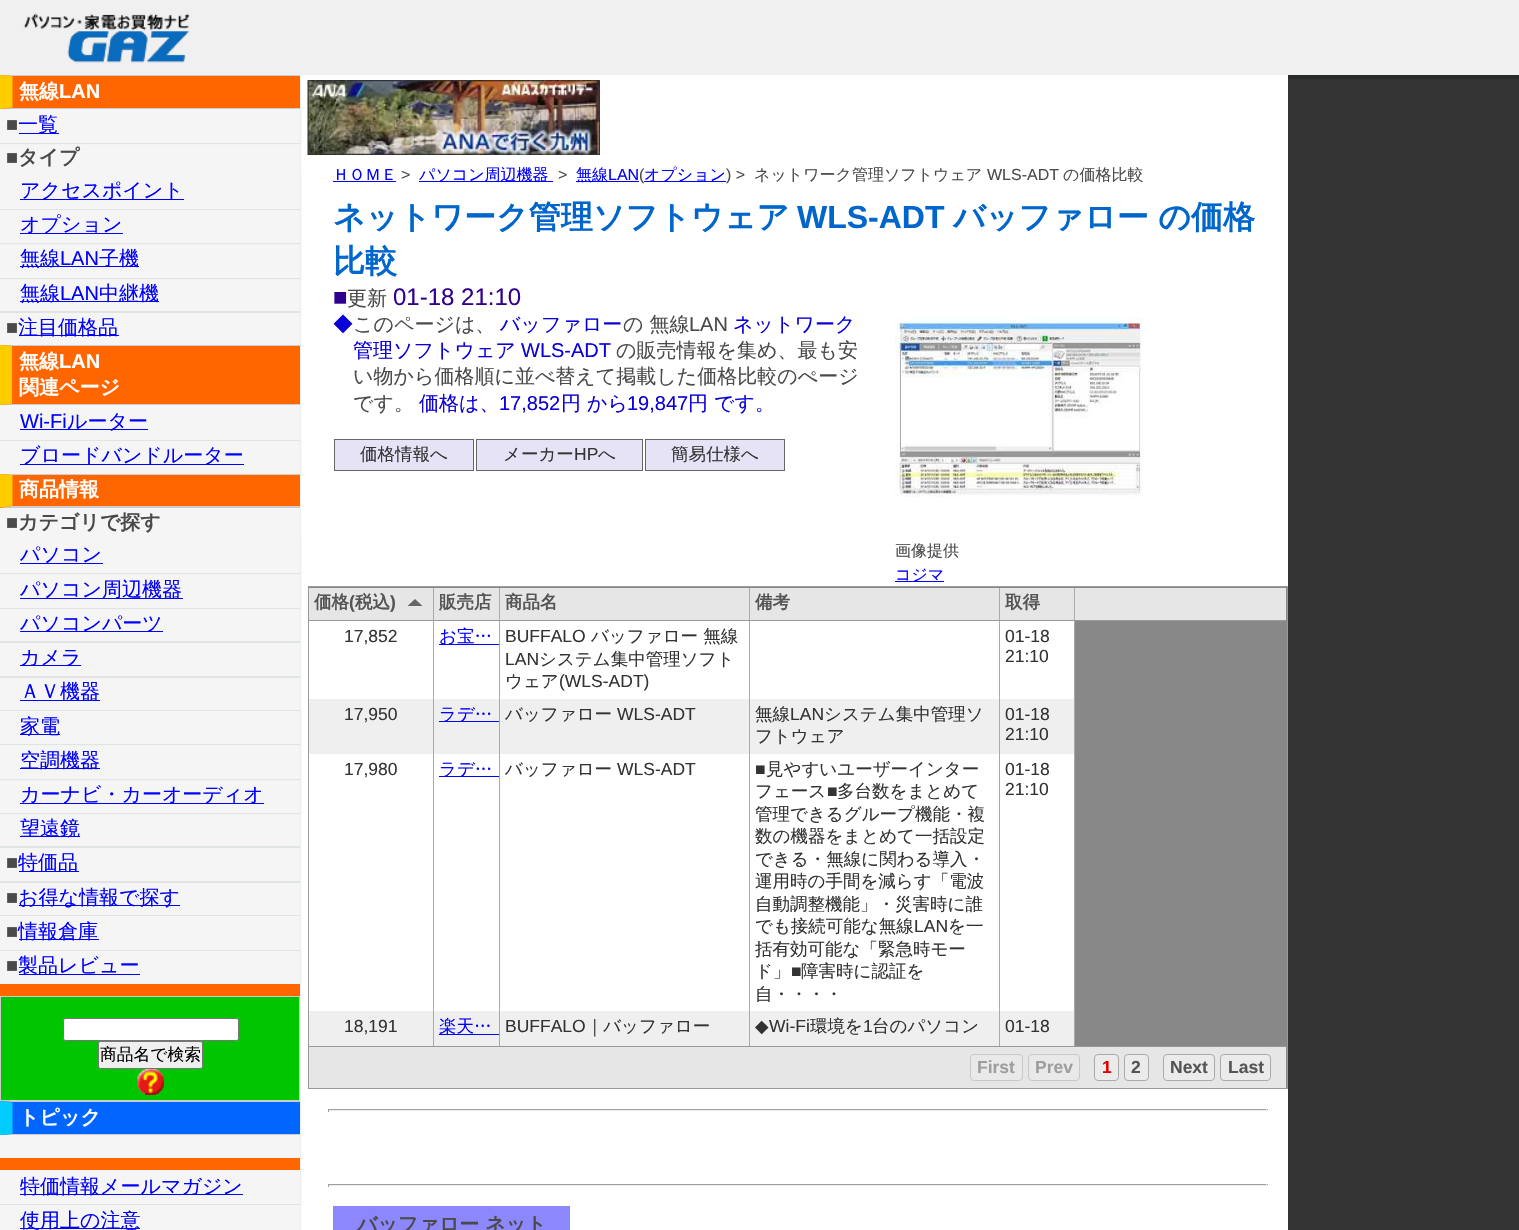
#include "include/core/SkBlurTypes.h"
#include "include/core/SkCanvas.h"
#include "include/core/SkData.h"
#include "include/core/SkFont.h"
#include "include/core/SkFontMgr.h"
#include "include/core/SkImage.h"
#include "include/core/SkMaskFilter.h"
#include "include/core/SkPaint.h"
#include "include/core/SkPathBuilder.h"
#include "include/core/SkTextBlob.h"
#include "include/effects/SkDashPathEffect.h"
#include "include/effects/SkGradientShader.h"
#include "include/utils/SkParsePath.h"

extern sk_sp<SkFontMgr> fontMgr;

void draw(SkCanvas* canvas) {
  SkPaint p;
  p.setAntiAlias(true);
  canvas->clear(SkColorSetRGB(51, 51, 51));
  p.setColor(SkColorSetARGB(51, 0, 10, 10));
  p.setMaskFilter(SkMaskFilter::MakeBlur(kNormal_SkBlurStyle, 1));
  canvas->drawRect(SkRect::MakeLTRB(0, 4, 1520, 79), p);
  p.setMaskFilter(nullptr);
  p.setColor(SkColorSetRGB(240, 240, 240));
  canvas->drawRect(SkRect::MakeLTRB(0, 0, 1519, 75), p);
  canvas->drawImageRect(SkImages::DeferredFromEncodedData(SkData::MakeFromFileName("images/1.png")), SkRect::MakeLTRB(23, 13, 190, 63), SkSamplingOptions());
  p.setColor(SK_ColorWHITE);
  canvas->drawRect(SkRect::MakeLTRB(300, 75, 1288, 1230), p);
  p.setColor(SkColorSetARGB(51, 0, 10, 10));
  p.setMaskFilter(SkMaskFilter::MakeBlur(kNormal_SkBlurStyle, 1));
  canvas->drawRect(SkRect::MakeLTRB(0, 79, 300, 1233), p);
  p.setMaskFilter(nullptr);
  p.setColor(SkColorSetRGB(245, 245, 245));
  canvas->drawRect(SkRect::MakeLTRB(0, 109, 300, 1230), p);
  p.setColor(SkColorSetRGB(255, 102, 0));
  canvas->drawRect(SkRect::MakeLTRB(0, 75, 300, 109), p);
  p.setColor(SkColorSetRGB(204, 204, 204));
  canvas->drawPath(SkPathBuilder().moveTo(0, 75).lineTo(300, 75).lineTo(300, 76).lineTo(12, 76).close().detach(), p);
  canvas->drawPath(SkPathBuilder().moveTo(300, 109).lineTo(0, 109).lineTo(12, 108).lineTo(300, 108).close().detach(), p);
  p.setColor(SkColorSetRGB(255, 204, 0));
  canvas->drawPath(SkPathBuilder().moveTo(0, 109).lineTo(0, 75).lineTo(12.5f, 76).lineTo(12.5f, 107.5f).close().detach(), p);
  canvas->save();
  canvas->clipPath(SkPathBuilder(SkPathFillType::kEvenOdd).moveTo(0, 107).lineTo(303, 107).lineTo(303, 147).lineTo(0, 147).close().moveTo(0, 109).lineTo(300, 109).lineTo(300, 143).lineTo(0, 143).close().detach(), true);
  p.setColor(SkColorSetARGB(26, 50, 80, 80));
  p.setMaskFilter(SkMaskFilter::MakeBlur(kNormal_SkBlurStyle, 0.5f));
  canvas->drawRect(SkRect::MakeLTRB(0, 110, 300, 144), p);
  p.setMaskFilter(nullptr);
  canvas->restore();
  p.setColor(SkColorSetRGB(0, 0, 255));
  canvas->drawRect(SkRect::MakeLTRB(19, 133, 59, 134), p);
  canvas->save();
  canvas->clipPath(SkPathBuilder(SkPathFillType::kEvenOdd).moveTo(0, 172).lineTo(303, 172).lineTo(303, 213).lineTo(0, 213).close().moveTo(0, 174).lineTo(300, 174).lineTo(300, 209).lineTo(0, 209).close().detach(), true);
  p.setColor(SkColorSetARGB(26, 50, 80, 80));
  p.setMaskFilter(SkMaskFilter::MakeBlur(kNormal_SkBlurStyle, 0.5f));
  canvas->drawRect(SkRect::MakeLTRB(0, 175, 300, 210), p);
  p.setMaskFilter(nullptr);
  canvas->restore();
  p.setColor(SkColorSetRGB(0, 0, 255));
  canvas->drawRect(SkRect::MakeLTRB(20, 199, 184, 200), p);
  canvas->save();
  canvas->clipPath(SkPathBuilder(SkPathFillType::kEvenOdd).moveTo(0, 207).lineTo(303, 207).lineTo(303, 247).lineTo(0, 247).close().moveTo(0, 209).lineTo(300, 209).lineTo(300, 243).lineTo(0, 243).close().detach(), true);
  p.setColor(SkColorSetARGB(26, 50, 80, 80));
  p.setMaskFilter(SkMaskFilter::MakeBlur(kNormal_SkBlurStyle, 0.5f));
  canvas->drawRect(SkRect::MakeLTRB(0, 210, 300, 244), p);
  p.setMaskFilter(nullptr);
  canvas->restore();
  p.setColor(SkColorSetRGB(0, 0, 255));
  canvas->drawRect(SkRect::MakeLTRB(20, 233, 123, 234), p);
  canvas->save();
  canvas->clipPath(SkPathBuilder(SkPathFillType::kEvenOdd).moveTo(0, 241).lineTo(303, 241).lineTo(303, 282).lineTo(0, 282).close().moveTo(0, 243).lineTo(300, 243).lineTo(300, 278).lineTo(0, 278).close().detach(), true);
  p.setColor(SkColorSetARGB(26, 50, 80, 80));
  p.setMaskFilter(SkMaskFilter::MakeBlur(kNormal_SkBlurStyle, 0.5f));
  canvas->drawRect(SkRect::MakeLTRB(0, 244, 300, 279), p);
  p.setMaskFilter(nullptr);
  canvas->restore();
  p.setColor(SkColorSetRGB(0, 0, 255));
  canvas->drawRect(SkRect::MakeLTRB(20, 266, 139, 267), p);
  canvas->save();
  canvas->clipRect(SkRect::MakeLTRB(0, 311, 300, 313));
  p.setColor(SkColorSetARGB(26, 50, 80, 80));
  p.setMaskFilter(SkMaskFilter::MakeBlur(kNormal_SkBlurStyle, 0.5f));
  canvas->drawRect(SkRect::MakeLTRB(0, 279, 300, 313), p);
  p.setMaskFilter(nullptr);
  canvas->restore();
  p.setColor(SkColorSetRGB(0, 0, 255));
  canvas->drawRect(SkRect::MakeLTRB(20, 301, 159, 302), p);
  canvas->drawRect(SkRect::MakeLTRB(19, 335, 119, 336), p);
  p.setColor(SkColorSetRGB(255, 102, 0));
  canvas->drawRect(SkRect::MakeLTRB(0, 345, 300, 405), p);
  p.setColor(SkColorSetRGB(204, 204, 204));
  canvas->drawPath(SkPathBuilder().moveTo(0, 345).lineTo(300, 345).lineTo(300, 346).lineTo(12, 346).close().detach(), p);
  canvas->drawPath(SkPathBuilder().moveTo(300, 405).lineTo(0, 405).lineTo(12, 404).lineTo(300, 404).close().detach(), p);
  p.setColor(SkColorSetRGB(255, 204, 0));
  canvas->drawPath(SkPathBuilder().moveTo(0, 405).lineTo(0, 345).lineTo(12, 346).lineTo(12, 404).close().detach(), p);
  canvas->save();
  canvas->clipRect(SkRect::MakeLTRB(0, 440, 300, 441));
  p.setColor(SkColorSetARGB(26, 50, 80, 80));
  p.setMaskFilter(SkMaskFilter::MakeBlur(kNormal_SkBlurStyle, 0.5f));
  canvas->drawRect(SkRect::MakeLTRB(0, 406, 300, 441), p);
  p.setMaskFilter(nullptr);
  canvas->restore();
  p.setColor(SkColorSetRGB(0, 0, 255));
  canvas->drawRect(SkRect::MakeLTRB(20, 429, 148, 430), p);
  canvas->save();
  canvas->clipPath(SkPathBuilder(SkPathFillType::kEvenOdd).moveTo(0, 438).lineTo(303, 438).lineTo(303, 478).lineTo(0, 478).close().moveTo(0, 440).lineTo(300, 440).lineTo(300, 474).lineTo(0, 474).close().detach(), true);
  p.setColor(SkColorSetARGB(26, 50, 80, 80));
  p.setMaskFilter(SkMaskFilter::MakeBlur(kNormal_SkBlurStyle, 0.5f));
  canvas->drawRect(SkRect::MakeLTRB(0, 441, 300, 475), p);
  p.setMaskFilter(nullptr);
  canvas->restore();
  p.setColor(SkColorSetRGB(0, 0, 255));
  canvas->drawRect(SkRect::MakeLTRB(20, 464, 244, 465), p);
  p.setColor(SkColorSetRGB(255, 102, 0));
  canvas->drawRect(SkRect::MakeLTRB(0, 474, 300, 508), p);
  p.setColor(SkColorSetRGB(204, 204, 204));
  canvas->drawPath(SkPathBuilder().moveTo(0, 474).lineTo(300, 474).lineTo(300, 475).lineTo(12, 475).close().detach(), p);
  canvas->drawPath(SkPathBuilder().moveTo(300, 508).lineTo(0, 508).lineTo(12, 506).lineTo(300, 506).close().detach(), p);
  p.setColor(SkColorSetRGB(255, 204, 0));
  canvas->drawPath(SkPathBuilder().moveTo(0, 507.5f).lineTo(0, 474).lineTo(12.5f, 475).lineTo(12.5f, 506).close().detach(), p);
  canvas->save();
  canvas->clipPath(SkPathBuilder(SkPathFillType::kEvenOdd).moveTo(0, 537).lineTo(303, 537).lineTo(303, 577).lineTo(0, 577).close().moveTo(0, 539).lineTo(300, 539).lineTo(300, 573).lineTo(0, 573).close().detach(), true);
  p.setColor(SkColorSetARGB(26, 50, 80, 80));
  p.setMaskFilter(SkMaskFilter::MakeBlur(kNormal_SkBlurStyle, 0.5f));
  canvas->drawRect(SkRect::MakeLTRB(0, 540, 300, 574), p);
  p.setMaskFilter(nullptr);
  canvas->restore();
  p.setColor(SkColorSetRGB(0, 0, 255));
  canvas->drawRect(SkRect::MakeLTRB(20, 563, 103, 564), p);
  canvas->save();
  canvas->clipPath(SkPathBuilder(SkPathFillType::kEvenOdd).moveTo(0, 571).lineTo(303, 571).lineTo(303, 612).lineTo(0, 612).close().moveTo(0, 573).lineTo(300, 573).lineTo(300, 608).lineTo(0, 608).close().detach(), true);
  p.setColor(SkColorSetARGB(26, 50, 80, 80));
  p.setMaskFilter(SkMaskFilter::MakeBlur(kNormal_SkBlurStyle, 0.5f));
  canvas->drawRect(SkRect::MakeLTRB(0, 574, 300, 609), p);
  p.setMaskFilter(nullptr);
  canvas->restore();
  p.setColor(SkColorSetRGB(0, 0, 255));
  canvas->drawRect(SkRect::MakeLTRB(20, 598, 183, 599), p);
  canvas->save();
  canvas->clipRect(SkRect::MakeLTRB(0, 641, 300, 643));
  p.setColor(SkColorSetARGB(26, 50, 80, 80));
  p.setMaskFilter(SkMaskFilter::MakeBlur(kNormal_SkBlurStyle, 0.5f));
  canvas->drawRect(SkRect::MakeLTRB(0, 609, 300, 643), p);
  p.setMaskFilter(nullptr);
  canvas->restore();
  p.setColor(SkColorSetRGB(0, 0, 255));
  canvas->drawRect(SkRect::MakeLTRB(20, 631, 163, 632), p);
  canvas->save();
  canvas->clipRect(SkRect::MakeLTRB(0, 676, 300, 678));
  p.setColor(SkColorSetARGB(26, 50, 80, 80));
  p.setMaskFilter(SkMaskFilter::MakeBlur(kNormal_SkBlurStyle, 0.5f));
  canvas->drawRect(SkRect::MakeLTRB(0, 643, 300, 678), p);
  p.setMaskFilter(nullptr);
  canvas->restore();
  p.setColor(SkColorSetRGB(0, 0, 255));
  canvas->drawRect(SkRect::MakeLTRB(20, 665, 81, 666), p);
  canvas->save();
  canvas->clipRect(SkRect::MakeLTRB(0, 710, 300, 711));
  p.setColor(SkColorSetARGB(26, 50, 80, 80));
  p.setMaskFilter(SkMaskFilter::MakeBlur(kNormal_SkBlurStyle, 0.5f));
  canvas->drawRect(SkRect::MakeLTRB(0, 678, 300, 711), p);
  p.setMaskFilter(nullptr);
  canvas->restore();
  p.setColor(SkColorSetRGB(0, 0, 255));
  canvas->drawRect(SkRect::MakeLTRB(20, 700, 100, 701), p);
  canvas->save();
  canvas->clipPath(SkPathBuilder(SkPathFillType::kEvenOdd).moveTo(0, 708).lineTo(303, 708).lineTo(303, 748).lineTo(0, 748).close().moveTo(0, 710).lineTo(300, 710).lineTo(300, 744).lineTo(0, 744).close().detach(), true);
  p.setColor(SkColorSetARGB(26, 50, 80, 80));
  p.setMaskFilter(SkMaskFilter::MakeBlur(kNormal_SkBlurStyle, 0.5f));
  canvas->drawRect(SkRect::MakeLTRB(0, 711, 300, 745), p);
  p.setMaskFilter(nullptr);
  canvas->restore();
  p.setColor(SkColorSetRGB(0, 0, 255));
  canvas->drawRect(SkRect::MakeLTRB(20, 734, 60, 735), p);
  canvas->save();
  canvas->clipPath(SkPathBuilder(SkPathFillType::kEvenOdd).moveTo(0, 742).lineTo(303, 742).lineTo(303, 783).lineTo(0, 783).close().moveTo(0, 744).lineTo(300, 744).lineTo(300, 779).lineTo(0, 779).close().detach(), true);
  p.setColor(SkColorSetARGB(26, 50, 80, 80));
  p.setMaskFilter(SkMaskFilter::MakeBlur(kNormal_SkBlurStyle, 0.5f));
  canvas->drawRect(SkRect::MakeLTRB(0, 745, 300, 780), p);
  p.setMaskFilter(nullptr);
  canvas->restore();
  p.setColor(SkColorSetRGB(0, 0, 255));
  canvas->drawRect(SkRect::MakeLTRB(20, 768, 100, 769), p);
  canvas->save();
  canvas->clipPath(SkPathBuilder(SkPathFillType::kEvenOdd).moveTo(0, 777).lineTo(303, 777).lineTo(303, 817).lineTo(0, 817).close().moveTo(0, 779).lineTo(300, 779).lineTo(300, 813).lineTo(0, 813).close().detach(), true);
  p.setColor(SkColorSetARGB(26, 50, 80, 80));
  p.setMaskFilter(SkMaskFilter::MakeBlur(kNormal_SkBlurStyle, 0.5f));
  canvas->drawRect(SkRect::MakeLTRB(0, 780, 300, 814), p);
  p.setMaskFilter(nullptr);
  canvas->restore();
  p.setColor(SkColorSetRGB(0, 0, 255));
  canvas->drawRect(SkRect::MakeLTRB(20, 803, 264, 804), p);
  canvas->save();
  canvas->clipRect(SkRect::MakeLTRB(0, 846, 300, 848));
  p.setColor(SkColorSetARGB(26, 50, 80, 80));
  p.setMaskFilter(SkMaskFilter::MakeBlur(kNormal_SkBlurStyle, 0.5f));
  canvas->drawRect(SkRect::MakeLTRB(0, 814, 300, 848), p);
  p.setMaskFilter(nullptr);
  canvas->restore();
  p.setColor(SkColorSetRGB(0, 0, 255));
  canvas->drawRect(SkRect::MakeLTRB(20, 836, 80, 837), p);
  canvas->save();
  canvas->clipRect(SkRect::MakeLTRB(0, 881, 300, 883));
  p.setColor(SkColorSetARGB(26, 50, 80, 80));
  p.setMaskFilter(SkMaskFilter::MakeBlur(kNormal_SkBlurStyle, 0.5f));
  canvas->drawRect(SkRect::MakeLTRB(0, 848, 300, 883), p);
  p.setMaskFilter(nullptr);
  canvas->restore();
  p.setColor(SkColorSetRGB(0, 0, 255));
  canvas->drawRect(SkRect::MakeLTRB(19, 871, 79, 872), p);
  canvas->save();
  canvas->clipRect(SkRect::MakeLTRB(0, 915, 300, 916));
  p.setColor(SkColorSetARGB(26, 50, 80, 80));
  p.setMaskFilter(SkMaskFilter::MakeBlur(kNormal_SkBlurStyle, 0.5f));
  canvas->drawRect(SkRect::MakeLTRB(0, 883, 300, 916), p);
  p.setMaskFilter(nullptr);
  canvas->restore();
  p.setColor(SkColorSetRGB(0, 0, 255));
  canvas->drawRect(SkRect::MakeLTRB(19, 905, 180, 906), p);
  canvas->save();
  canvas->clipRect(SkRect::MakeLTRB(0, 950, 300, 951));
  p.setColor(SkColorSetARGB(26, 50, 80, 80));
  p.setMaskFilter(SkMaskFilter::MakeBlur(kNormal_SkBlurStyle, 0.5f));
  canvas->drawRect(SkRect::MakeLTRB(0, 916, 300, 951), p);
  p.setMaskFilter(nullptr);
  canvas->restore();
  p.setColor(SkColorSetRGB(0, 0, 255));
  canvas->drawRect(SkRect::MakeLTRB(19, 939, 99, 940), p);
  canvas->save();
  canvas->clipPath(SkPathBuilder(SkPathFillType::kEvenOdd).moveTo(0, 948).lineTo(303, 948).lineTo(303, 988).lineTo(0, 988).close().moveTo(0, 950).lineTo(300, 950).lineTo(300, 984).lineTo(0, 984).close().detach(), true);
  p.setColor(SkColorSetARGB(26, 50, 80, 80));
  p.setMaskFilter(SkMaskFilter::MakeBlur(kNormal_SkBlurStyle, 0.5f));
  canvas->drawRect(SkRect::MakeLTRB(0, 951, 300, 985), p);
  p.setMaskFilter(nullptr);
  canvas->restore();
  p.setColor(SkColorSetRGB(0, 0, 255));
  canvas->drawRect(SkRect::MakeLTRB(19, 974, 140, 975), p);
  p.setColor(SkColorSetRGB(255, 102, 0));
  canvas->drawRect(SkRect::MakeLTRB(0, 984, 300, 996), p);
  p.setColor(SkColorSetRGB(0, 198, 0));
  canvas->drawRect(SkRect::MakeLTRB(0.5f, 996.5f, 299.5f, 1100.5f), p);
  p.setStyle(SkPaint::kStroke_Style);
  p.setStrokeWidth(1);
  p.setColor(SkColorSetRGB(204, 204, 204));
  canvas->drawRect(SkRect::MakeLTRB(0.5f, 996.5f, 299.5f, 1100.5f), p);
  p.setStyle(SkPaint::kFill_Style);
  p.setColor(SK_ColorWHITE);
  canvas->drawRoundRect(SkRect::MakeLTRB(63.5f, 1018.5f, 238.5f, 1040.5f), 2, 2, p);
  p.setStyle(SkPaint::kStroke_Style);
  p.setColor(SkColorSetRGB(118, 118, 118));
  canvas->drawRoundRect(SkRect::MakeLTRB(63.5f, 1018.5f, 238.5f, 1040.5f), 2, 2, p);
  p.setStyle(SkPaint::kFill_Style);
  p.setColor(SkColorSetRGB(239, 239, 239));
  canvas->drawRoundRect(SkRect::MakeLTRB(98.5f, 1041.5f, 202.5f, 1068.5f), 2, 2, p);
  p.setStyle(SkPaint::kStroke_Style);
  p.setColor(SkColorSetRGB(118, 118, 118));
  canvas->drawRoundRect(SkRect::MakeLTRB(98.5f, 1041.5f, 202.5f, 1068.5f), 2, 2, p);
  canvas->drawImageRect(SkImages::DeferredFromEncodedData(SkData::MakeFromFileName("images/2.png")), SkRect::MakeLTRB(137, 1069, 164, 1095), SkSamplingOptions());
  p.setStyle(SkPaint::kFill_Style);
  p.setColor(SkColorSetRGB(0, 102, 255));
  canvas->drawRect(SkRect::MakeLTRB(0, 1101, 300, 1135), p);
  p.setColor(SkColorSetRGB(204, 204, 204));
  canvas->drawPath(SkPathBuilder().moveTo(0, 1101).lineTo(300, 1101).lineTo(300, 1102).lineTo(12, 1102).close().detach(), p);
  canvas->drawPath(SkPathBuilder().moveTo(300, 1135).lineTo(0, 1135).lineTo(12, 1134).lineTo(300, 1134).close().detach(), p);
  p.setColor(SkColorSetRGB(0, 204, 255));
  canvas->drawPath(SkPathBuilder().moveTo(0, 1135).lineTo(0, 1101).lineTo(12.5f, 1102.5f).lineTo(12.5f, 1134).close().detach(), p);
  p.setColor(SkColorSetRGB(255, 102, 0));
  canvas->drawRect(SkRect::MakeLTRB(0, 1158, 300, 1170), p);
  canvas->save();
  canvas->clipPath(SkPathBuilder(SkPathFillType::kEvenOdd).moveTo(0, 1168).lineTo(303, 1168).lineTo(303, 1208).lineTo(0, 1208).close().moveTo(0, 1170).lineTo(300, 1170).lineTo(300, 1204).lineTo(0, 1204).close().detach(), true);
  p.setColor(SkColorSetARGB(26, 50, 80, 80));
  p.setMaskFilter(SkMaskFilter::MakeBlur(kNormal_SkBlurStyle, 0.5f));
  canvas->drawRect(SkRect::MakeLTRB(0, 1171, 300, 1205), p);
  p.setMaskFilter(nullptr);
  canvas->restore();
  p.setColor(SkColorSetRGB(0, 0, 255));
  canvas->drawRect(SkRect::MakeLTRB(20, 1194, 243, 1195), p);
  canvas->drawRect(SkRect::MakeLTRB(20, 1228, 140, 1229), p);
  canvas->drawImageRect(SkImages::DeferredFromEncodedData(SkData::MakeFromFileName("images/3.png")), SkRect::MakeLTRB(307, 80, 600, 155), SkSamplingOptions());
  canvas->drawRect(SkRect::MakeLTRB(333, 181, 396, 182), p);
  canvas->drawRect(SkRect::MakeLTRB(419, 181, 553, 182), p);
  canvas->drawRect(SkRect::MakeLTRB(576, 181, 639, 182), p);
  p.setColor(SkColorSetRGB(231, 227, 247));
  canvas->drawRect(SkRect::MakeLTRB(334.5f, 439.5f, 473.5f, 470.5f), p);
  p.setStyle(SkPaint::kStroke_Style);
  p.setColor(SkColorSetRGB(102, 102, 102));
  canvas->drawRect(SkRect::MakeLTRB(334.5f, 439.5f, 473.5f, 470.5f), p);
  p.setStyle(SkPaint::kFill_Style);
  p.setColor(SkColorSetRGB(231, 227, 247));
  canvas->drawRect(SkRect::MakeLTRB(476.5f, 439.5f, 642.5f, 470.5f), p);
  p.setStyle(SkPaint::kStroke_Style);
  p.setColor(SkColorSetRGB(102, 102, 102));
  canvas->drawRect(SkRect::MakeLTRB(476.5f, 439.5f, 642.5f, 470.5f), p);
  p.setStyle(SkPaint::kFill_Style);
  p.setColor(SkColorSetRGB(231, 227, 247));
  canvas->drawRect(SkRect::MakeLTRB(645.5f, 439.5f, 784.5f, 470.5f), p);
  p.setStyle(SkPaint::kStroke_Style);
  p.setColor(SkColorSetRGB(102, 102, 102));
  canvas->drawRect(SkRect::MakeLTRB(645.5f, 439.5f, 784.5f, 470.5f), p);
  canvas->drawImageRect(SkImages::DeferredFromEncodedData(SkData::MakeFromFileName("images/4.png")), SkRect::MakeLTRB(895, 317, 1144, 497), SkSamplingOptions());
  p.setStyle(SkPaint::kFill_Style);
  p.setColor(SkColorSetRGB(0, 0, 255));
  canvas->drawRect(SkRect::MakeLTRB(895, 581, 944, 582), p);
  p.setColor(SkColorSetRGB(136, 136, 136));
  canvas->drawRect(SkRect::MakeLTRB(308.5f, 586.5f, 1287.5f, 1088.5f), p);
  p.setStyle(SkPaint::kStroke_Style);
  p.setColor(SkColorSetRGB(153, 153, 153));
  canvas->drawRect(SkRect::MakeLTRB(308.5f, 586.5f, 1287.5f, 1088.5f), p);
  p.setStyle(SkPaint::kFill_Style);
  p.setColor(SkColorSetRGB(230, 230, 230));
  canvas->drawRect(SkRect::MakeLTRB(309, 588, 1286, 620), p);
  p.setColor(SkColorSetRGB(153, 153, 153));
  canvas->drawRect(SkRect::MakeLTRB(309, 620, 1286, 621), p);
  p.setColor(SkColorSetRGB(170, 170, 170));
  canvas->drawRect(SkRect::MakeLTRB(433, 588, 434, 620), p);
  p.setColor(SkColorSetRGB(102, 102, 102));
  canvas->drawPath(SkPathBuilder().moveTo(422.5f, 606).lineTo(407.5f, 606).lineTo(415, 599).close().detach(), p);
  p.setColor(SkColorSetRGB(170, 170, 170));
  canvas->drawRect(SkRect::MakeLTRB(499, 588, 500, 620), p);
  canvas->drawRect(SkRect::MakeLTRB(749, 588, 750, 620), p);
  canvas->drawRect(SkRect::MakeLTRB(999, 588, 1000, 620), p);
  canvas->drawRect(SkRect::MakeLTRB(1074, 588, 1075, 620), p);
  p.setColor(SK_ColorWHITE);
  canvas->drawRect(SkRect::MakeLTRB(309, 621, 1074, 1011), p);
  p.setColor(SkColorSetRGB(170, 170, 170));
  canvas->drawRect(SkRect::MakeLTRB(433, 621, 434, 699), p);
  canvas->drawRect(SkRect::MakeLTRB(499, 621, 500, 699), p);
  p.setColor(SkColorSetRGB(0, 0, 255));
  canvas->drawRect(SkRect::MakeLTRB(439, 644, 499, 645), p);
  p.setColor(SkColorSetRGB(170, 170, 170));
  canvas->drawRect(SkRect::MakeLTRB(749, 621, 750, 699), p);
  canvas->drawRect(SkRect::MakeLTRB(999, 621, 1000, 699), p);
  canvas->drawRect(SkRect::MakeLTRB(1074, 621, 1075, 1046), p);
  p.setColor(SkColorSetRGB(239, 239, 239));
  canvas->drawRect(SkRect::MakeLTRB(309, 699, 1074, 754), p);
  p.setColor(SkColorSetRGB(170, 170, 170));
  canvas->drawRect(SkRect::MakeLTRB(433, 699, 434, 1011), p);
  canvas->drawRect(SkRect::MakeLTRB(499, 699, 500, 1011), p);
  p.setColor(SkColorSetRGB(0, 0, 255));
  canvas->drawRect(SkRect::MakeLTRB(439, 721, 499, 722), p);
  p.setColor(SkColorSetRGB(170, 170, 170));
  canvas->drawRect(SkRect::MakeLTRB(749, 699, 750, 1011), p);
  canvas->drawRect(SkRect::MakeLTRB(999, 699, 1000, 1011), p);
  p.setColor(SkColorSetRGB(0, 0, 255));
  canvas->drawRect(SkRect::MakeLTRB(439, 776, 499, 777), p);
  p.setColor(SkColorSetRGB(239, 239, 239));
  canvas->drawRect(SkRect::MakeLTRB(309, 1011, 1074, 1046), p);
  p.setColor(SkColorSetRGB(170, 170, 170));
  canvas->drawRect(SkRect::MakeLTRB(433, 1011, 434, 1046), p);
  canvas->drawRect(SkRect::MakeLTRB(499, 1011, 500, 1046), p);
  p.setColor(SkColorSetRGB(0, 0, 255));
  canvas->drawRect(SkRect::MakeLTRB(439, 1034, 499, 1035), p);
  p.setColor(SkColorSetRGB(170, 170, 170));
  canvas->drawRect(SkRect::MakeLTRB(749, 1011, 750, 1046), p);
  canvas->drawRect(SkRect::MakeLTRB(999, 1011, 1000, 1046), p);
  p.setColor(SkColorSetRGB(230, 230, 230));
  canvas->drawRect(SkRect::MakeLTRB(309, 1047, 1286, 1088), p);
  p.setColor(SkColorSetRGB(153, 153, 153));
  canvas->drawRect(SkRect::MakeLTRB(309, 1046, 1286, 1047), p);
  p.setColor(SkColorSetRGB(233, 233, 233));
  canvas->drawRoundRect(SkRect::MakeLTRB(970.5f, 1054.5f, 1022.5f, 1080.5f), 3.5f, 3.5f, p);
  p.setStyle(SkPaint::kStroke_Style);
  p.setColor(SkColorSetRGB(200, 200, 200));
  canvas->drawRoundRect(SkRect::MakeLTRB(970.5f, 1054.5f, 1022.5f, 1080.5f), 3.5f, 3.5f, p);
  p.setStyle(SkPaint::kFill_Style);
  p.setColor(SkColorSetRGB(233, 233, 233));
  canvas->drawRoundRect(SkRect::MakeLTRB(1028.5f, 1054.5f, 1079.5f, 1080.5f), 3.5f, 3.5f, p);
  p.setStyle(SkPaint::kStroke_Style);
  p.setColor(SkColorSetRGB(200, 200, 200));
  canvas->drawRoundRect(SkRect::MakeLTRB(1028.5f, 1054.5f, 1079.5f, 1080.5f), 3.5f, 3.5f, p);
  p.setStyle(SkPaint::kFill_Style);
  p.setColor(SkColorSetRGB(235, 235, 235));
  canvas->drawRoundRect(SkRect::MakeLTRB(1094.5f, 1054.5f, 1118.5f, 1080.5f), 3.5f, 3.5f, p);
  p.setStyle(SkPaint::kStroke_Style);
  p.setColor(SkColorSetRGB(170, 170, 170));
  canvas->drawRoundRect(SkRect::MakeLTRB(1094.5f, 1054.5f, 1118.5f, 1080.5f), 3.5f, 3.5f, p);
  p.setStyle(SkPaint::kFill_Style);
  p.setColor(SkColorSetRGB(235, 235, 235));
  canvas->drawRoundRect(SkRect::MakeLTRB(1124.5f, 1054.5f, 1148.5f, 1080.5f), 3.5f, 3.5f, p);
  p.setStyle(SkPaint::kStroke_Style);
  p.setColor(SkColorSetRGB(170, 170, 170));
  canvas->drawRoundRect(SkRect::MakeLTRB(1124.5f, 1054.5f, 1148.5f, 1080.5f), 3.5f, 3.5f, p);
  p.setStyle(SkPaint::kFill_Style);
  p.setColor(SkColorSetRGB(235, 235, 235));
  canvas->drawRoundRect(SkRect::MakeLTRB(1163.5f, 1054.5f, 1214.5f, 1080.5f), 3.5f, 3.5f, p);
  p.setStyle(SkPaint::kStroke_Style);
  p.setColor(SkColorSetRGB(170, 170, 170));
  canvas->drawRoundRect(SkRect::MakeLTRB(1163.5f, 1054.5f, 1214.5f, 1080.5f), 3.5f, 3.5f, p);
  p.setStyle(SkPaint::kFill_Style);
  p.setColor(SkColorSetRGB(235, 235, 235));
  canvas->drawRoundRect(SkRect::MakeLTRB(1220.5f, 1054.5f, 1270.5f, 1080.5f), 3.5f, 3.5f, p);
  p.setStyle(SkPaint::kStroke_Style);
  p.setColor(SkColorSetRGB(170, 170, 170));
  canvas->drawRoundRect(SkRect::MakeLTRB(1220.5f, 1054.5f, 1270.5f, 1080.5f), 3.5f, 3.5f, p);
  p.setStyle(SkPaint::kFill_Style);
  p.setColor(SkColorSetRGB(159, 159, 159));
  canvas->drawRect(SkRect::MakeLTRB(328, 1109, 1268, 1110), p);
  p.setColor(SkColorSetRGB(238, 238, 238));
  canvas->drawRect(SkRect::MakeLTRB(1266, 1109, 1267, 1112), p);
  canvas->drawRect(SkRect::MakeLTRB(328, 1110, 1268, 1111), p);
  p.setColor(SkColorSetRGB(159, 159, 159));
  canvas->drawRect(SkRect::MakeLTRB(328, 1109, 329, 1112), p);
  canvas->drawRect(SkRect::MakeLTRB(328, 1184, 1268, 1185), p);
  p.setColor(SkColorSetRGB(238, 238, 238));
  canvas->drawRect(SkRect::MakeLTRB(1266, 1184, 1267, 1187), p);
  canvas->drawRect(SkRect::MakeLTRB(328, 1185, 1268, 1186), p);
  p.setColor(SkColorSetRGB(159, 159, 159));
  canvas->drawRect(SkRect::MakeLTRB(328, 1184, 329, 1187), p);
  p.setColor(SkColorSetRGB(141, 135, 252));
  canvas->drawRect(SkRect::MakeLTRB(333, 1206, 570, 1230), p);
  SkFont font1(fontMgr->matchFamilyStyle("WenQuanYi Zen Hei", SkFontStyle::Bold()), 20);
  font1.setSubpixel(true);
  p.setColor(SK_ColorWHITE);
  canvas->drawString("無線", 19, 98, font1, p);
  SkFont font2(fontMgr->matchFamilyStyle("Liberation Sans", SkFontStyle::Bold()), 20);
  font2.setSubpixel(true);
  canvas->drawString("LAN", 59, 98, font2, p);
  SkFont font3(fontMgr->matchFamilyStyle("Liberation Sans", SkFontStyle::Normal()), 20);
  font3.setSubpixel(true);
  p.setColor(SkColorSetRGB(74, 74, 74));
  canvas->drawString("■", 6, 131, font3, p);
  SkFont font4(fontMgr->matchFamilyStyle("WenQuanYi Zen Hei", SkFontStyle(500, SkFontStyle::kNormal_Width, SkFontStyle::kUpright_Slant)), 20);
  font4.setSubpixel(true);
  p.setColor(SkColorSetRGB(0, 0, 255));
  canvas->drawString("一覧", 18, 131, font4, p);
  p.setColor(SkColorSetRGB(74, 74, 74));
  canvas->drawString("■", 6, 164, font2, p);
  canvas->drawString("タイプ", 18, 164, font1, p);
  p.setColor(SkColorSetRGB(0, 0, 255));
  canvas->drawString("アクセスポイント", 20, 197, font4, p);
  canvas->drawString("オプション", 20, 231, font4, p);
  canvas->drawString("無線", 20, 265, font4, p);
  canvas->drawString("LAN", 60, 265, font3, p);
  canvas->drawString("子機", 99, 265, font4, p);
  canvas->drawString("無線", 20, 300, font4, p);
  canvas->drawString("LAN", 60, 300, font3, p);
  canvas->drawString("中継機", 99, 300, font4, p);
  p.setColor(SkColorSetRGB(74, 74, 74));
  canvas->drawString("■", 6, 334, font3, p);
  p.setColor(SkColorSetRGB(0, 0, 255));
  canvas->drawString("注目価格品", 18, 334, font4, p);
  p.setColor(SK_ColorWHITE);
  canvas->drawString("無線", 19, 368, font1, p);
  canvas->drawString("LAN", 59, 368, font2, p);
  canvas->drawString("関連ページ", 19, 394, font1, p);
  p.setColor(SkColorSetRGB(0, 0, 255));
  canvas->drawString("Wi-Fi", 20, 428, font3, p);
  canvas->drawString("ルーター", 67, 428, font4, p);
  canvas->drawString("ブロードバンドルーター", 20, 462, font4, p);
  p.setColor(SK_ColorWHITE);
  canvas->drawString("商品情報", 19, 496, font1, p);
  p.setColor(SkColorSetRGB(74, 74, 74));
  canvas->drawString("■", 6, 529, font2, p);
  canvas->drawString("カテゴリで探す", 18, 529, font1, p);
  p.setColor(SkColorSetRGB(0, 0, 255));
  canvas->drawString("パソコン", 20, 561, font4, p);
  canvas->drawString("パソコン周辺機器", 20, 596, font4, p);
  canvas->drawString("パソコンパーツ", 20, 630, font4, p);
  canvas->drawString("カメラ", 20, 664, font4, p);
  canvas->drawString("ＡＶ機器", 20, 698, font4, p);
  canvas->drawString("家電", 20, 733, font4, p);
  canvas->drawString("空調機器", 20, 767, font4, p);
  canvas->drawString("カーナビ・カーオーディオ", 20, 801, font4, p);
  canvas->drawString("望遠鏡", 20, 835, font4, p);
  p.setColor(SkColorSetRGB(74, 74, 74));
  canvas->drawString("■", 6, 869, font3, p);
  p.setColor(SkColorSetRGB(0, 0, 255));
  canvas->drawString("特価品", 18, 869, font4, p);
  p.setColor(SkColorSetRGB(74, 74, 74));
  canvas->drawString("■", 6, 904, font3, p);
  p.setColor(SkColorSetRGB(0, 0, 255));
  canvas->drawString("お得な情報で探す", 18, 904, font4, p);
  p.setColor(SkColorSetRGB(74, 74, 74));
  canvas->drawString("■", 6, 938, font3, p);
  p.setColor(SkColorSetRGB(0, 0, 255));
  canvas->drawString("情報倉庫", 18, 938, font4, p);
  p.setColor(SkColorSetRGB(74, 74, 74));
  canvas->drawString("■", 6, 972, font3, p);
  p.setColor(SkColorSetRGB(0, 0, 255));
  canvas->drawString("製品レビュー", 18, 972, font4, p);
  SkFont font5(fontMgr->matchFamilyStyle("WenQuanYi Zen Hei", SkFontStyle(500, SkFontStyle::kNormal_Width, SkFontStyle::kUpright_Slant)), 16.75f);
  font5.setSubpixel(true);
  p.setColor(SK_ColorBLACK);
  canvas->drawString("商品名で検索", 100, 1060, font5, p);
  p.setColor(SK_ColorWHITE);
  canvas->drawString("トピック", 19, 1124, font1, p);
  p.setColor(SkColorSetRGB(0, 0, 255));
  canvas->drawString("特価情報メールマガジン", 20, 1193, font4, p);
  canvas->drawString("使用上の注意", 20, 1227, font4, p);
  SkFont font6(fontMgr->matchFamilyStyle("WenQuanYi Zen Hei", SkFontStyle(500, SkFontStyle::kNormal_Width, SkFontStyle::kUpright_Slant)), 16);
  font6.setSubpixel(true);
  canvas->drawString("ＨＯＭＥ", 333, 180, font6, p);
  SkFont font7(fontMgr->matchFamilyStyle("Liberation Sans", SkFontStyle::Normal()), 16);
  font7.setSubpixel(true);
  p.setColor(SkColorSetRGB(74, 74, 74));
  canvas->drawString(">", 401, 180, font7, p);
  p.setColor(SkColorSetRGB(0, 0, 255));
  canvas->drawString("パソコン周辺機器", 419, 180, font6, p);
  p.setColor(SkColorSetRGB(74, 74, 74));
  canvas->drawString(">", 558, 180, font7, p);
  p.setColor(SkColorSetRGB(0, 0, 255));
  canvas->drawString("無線", 576, 180, font6, p);
  canvas->drawString("LAN", 608, 180, font7, p);
  p.setColor(SkColorSetRGB(74, 74, 74));
  canvas->drawString("(", 639, 180, font7, p);
  p.setColor(SkColorSetRGB(0, 0, 255));
  canvas->drawRect(SkRect::MakeLTRB(644, 181, 726, 182), p);
  canvas->drawString("オプション", 644, 180, font6, p);
  p.setColor(SkColorSetRGB(74, 74, 74));
  canvas->drawString(") >", 726, 180, font7, p);
  canvas->drawString("ネットワーク管理ソフトウェア", 754, 180, font6, p);
  canvas->drawString("WLS-ADT", 987, 180, font7, p);
  canvas->drawString("の価格比較", 1063, 180, font6, p);
  SkFont font8(fontMgr->matchFamilyStyle("WenQuanYi Zen Hei", SkFontStyle::Bold()), 32);
  font8.setSubpixel(true);
  p.setColor(SkColorSetRGB(0, 102, 204));
  canvas->drawString("ネットワーク管理ソフトウェア", 333, 228, font8, p);
  SkFont font9(fontMgr->matchFamilyStyle("Liberation Sans", SkFontStyle::Bold()), 32);
  font9.setSubpixel(true);
  canvas->drawString("WLS-ADT", 797, 228, font9, p);
  canvas->drawString("バッファロー の価格", 953, 228, font8, p);
  canvas->drawString("比較", 333, 272, font8, p);
  SkFont font10(fontMgr->matchFamilyStyle("Liberation Sans", SkFontStyle::Normal()), 24);
  font10.setSubpixel(true);
  p.setColor(SkColorSetRGB(49, 0, 142));
  canvas->drawString("■", 333, 305, font10, p);
  p.setColor(SkColorSetRGB(74, 74, 74));
  canvas->drawString("更新", 347, 305, font4, p);
  p.setColor(SkColorSetRGB(49, 0, 142));
  canvas->drawString("01-18 21:10", 393, 305, font10, p);
  p.setColor(SkColorSetRGB(11, 0, 215));
  canvas->drawString("◆", 333, 331, font4, p);
  p.setColor(SkColorSetRGB(74, 74, 74));
  canvas->drawString("このページは、", 353, 331, font4, p);
  p.setColor(SkColorSetRGB(11, 0, 215));
  canvas->drawString("バッファロー", 500, 331, font4, p);
  p.setColor(SkColorSetRGB(74, 74, 74));
  canvas->drawString("の 無線", 623, 331, font4, p);
  canvas->drawString("LAN", 689, 331, font3, p);
  p.setColor(SkColorSetRGB(11, 0, 215));
  canvas->drawString("ネットワーク", 733, 331, font4, p);
  canvas->drawString("管理ソフトウェア", 353, 357, font4, p);
  canvas->drawString("WLS-ADT", 521, 357, font3, p);
  p.setColor(SkColorSetRGB(74, 74, 74));
  canvas->drawString("の販売情報を集め、最も安", 616, 357, font4, p);
  canvas->drawString("い物から価格順に並べ替えて掲載した価格比較のぺージ", 353, 383, font4, p);
  canvas->drawString("です。", 353, 410, font4, p);
  p.setColor(SkColorSetRGB(11, 0, 215));
  canvas->drawString("価格は、", 419, 410, font4, p);
  canvas->drawString("17,852", 499, 410, font3, p);
  canvas->drawString("円 から", 561, 410, font4, p);
  canvas->drawString("19,847", 627, 410, font3, p);
  canvas->drawString("円 です。", 688, 410, font4, p);
  SkFont font11(fontMgr->matchFamilyStyle("WenQuanYi Zen Hei", SkFontStyle(500, SkFontStyle::kNormal_Width, SkFontStyle::kUpright_Slant)), 17.5f);
  font11.setSubpixel(true);
  p.setColor(SkColorSetRGB(51, 51, 51));
  canvas->drawString("価格情報へ", 360, 460, font11, p);
  canvas->drawString("メーカー", 503, 460, font11, p);
  SkFont font12(fontMgr->matchFamilyStyle("Liberation Sans", SkFontStyle::Normal()), 17.5f);
  font12.setSubpixel(true);
  canvas->drawString("HP", 574, 460, font12, p);
  canvas->drawString("へ", 598, 460, font11, p);
  canvas->drawString("簡易仕様へ", 671, 460, font11, p);
  p.setColor(SkColorSetRGB(74, 74, 74));
  canvas->drawString("画像提供", 895, 556, font6, p);
  p.setColor(SkColorSetRGB(0, 0, 255));
  canvas->drawString("コジマ", 895, 580, font6, p);
  SkFont font13(fontMgr->matchFamilyStyle("WenQuanYi Zen Hei", SkFontStyle::Bold()), 17.5f);
  font13.setSubpixel(true);
  p.setColor(SkColorSetRGB(85, 85, 85));
  canvas->drawString("価格", 314, 608, font13, p);
  SkFont font14(fontMgr->matchFamilyStyle("Liberation Sans", SkFontStyle::Bold()), 17.5f);
  font14.setSubpixel(true);
  canvas->drawString("(", 349, 608, font14, p);
  canvas->drawString("税込", 355, 608, font13, p);
  canvas->drawString(")", 390, 608, font14, p);
  canvas->drawString("販売店", 439, 608, font13, p);
  canvas->drawString("商品名", 505, 608, font13, p);
  canvas->drawString("備考", 755, 608, font13, p);
  canvas->drawString("取得", 1005, 608, font13, p);
  p.setColor(SkColorSetRGB(51, 51, 51));
  canvas->drawString("17,852", 344, 642, font12, p);
  p.setColor(SkColorSetRGB(0, 0, 255));
  canvas->drawString("お宝…", 439, 642, font11, p);
  p.setColor(SkColorSetRGB(51, 51, 51));
  canvas->drawString("BUFFALO", 505, 642, font12, p);
  canvas->drawString("バッファロー 無線", 591, 642, font11, p);
  canvas->drawString("LAN", 505, 665, font12, p);
  canvas->drawString("システム集中管理ソフト", 539, 665, font11, p);
  canvas->drawString("ウェア", 505, 687, font11, p);
  canvas->drawString("(WLS-ADT)", 559, 687, font12, p);
  canvas->drawString("01-18", 1005, 642, font12, p);
  canvas->drawString("21:10", 1005, 662, font12, p);
  canvas->drawString("17,950", 344, 720, font12, p);
  p.setColor(SkColorSetRGB(0, 0, 255));
  canvas->drawString("ラデ…", 439, 720, font11, p);
  p.setColor(SkColorSetRGB(51, 51, 51));
  canvas->drawString("バッファロー", 505, 720, font11, p);
  canvas->drawString("WLS-ADT", 617, 720, font12, p);
  canvas->drawString("無線", 755, 720, font11, p);
  canvas->drawString("LAN", 790, 720, font12, p);
  canvas->drawString("システム集中管理ソ", 824, 720, font11, p);
  canvas->drawString("フトウェア", 755, 742, font11, p);
  canvas->drawString("01-18", 1005, 720, font12, p);
  canvas->drawString("21:10", 1005, 740, font12, p);
  canvas->drawString("17,980", 344, 775, font12, p);
  p.setColor(SkColorSetRGB(0, 0, 255));
  canvas->drawString("ラデ…", 439, 775, font11, p);
  p.setColor(SkColorSetRGB(51, 51, 51));
  canvas->drawString("バッファロー", 505, 775, font11, p);
  canvas->drawString("WLS-ADT", 617, 775, font12, p);
  canvas->drawString("■", 755, 775, font12, p);
  canvas->drawString("見やすいユーザーインター", 766, 775, font11, p);
  canvas->drawString("フェース", 755, 797, font11, p);
  canvas->drawString("■", 827, 797, font12, p);
  canvas->drawString("多台数をまとめて", 837, 797, font11, p);
  canvas->drawString("管理できるグループ機能・複", 755, 820, font11, p);
  canvas->drawString("数の機器をまとめて一括設定", 755, 842, font11, p);
  canvas->drawString("できる・無線に関わる導入・", 755, 865, font11, p);
  canvas->drawString("運用時の手間を減らす「電波", 755, 887, font11, p);
  canvas->drawString("自動調整機能」・災害時に誰", 755, 910, font11, p);
  canvas->drawString("でも接続可能な無線", 755, 932, font11, p);
  canvas->drawString("LAN", 914, 932, font12, p);
  canvas->drawString("を一", 948, 932, font11, p);
  canvas->drawString("括有効可能な「緊急時モー", 755, 955, font11, p);
  canvas->drawString("ド」", 755, 977, font11, p);
  canvas->drawString("■", 791, 977, font12, p);
  canvas->drawString("障害時に認証を", 801, 977, font11, p);
  canvas->drawString("自・・・・", 755, 1000, font11, p);
  canvas->drawString("01-18", 1005, 775, font12, p);
  canvas->drawString("21:10", 1005, 795, font12, p);
  canvas->drawString("18,191", 344, 1032, font12, p);
  p.setColor(SkColorSetRGB(0, 0, 255));
  canvas->drawString("楽天…", 439, 1032, font11, p);
  p.setColor(SkColorSetRGB(51, 51, 51));
  canvas->drawString("BUFFALO", 505, 1032, font12, p);
  canvas->drawString("｜バッファロー", 586, 1032, font11, p);
  SkFont font15(fontMgr->matchFamilyStyle("DejaVu Sans", SkFontStyle::Normal()), 17.5f);
  font15.setSubpixel(true);
  canvas->drawString("◆", 755, 1032, font15, p);
  canvas->drawString("Wi-Fi", 769, 1032, font12, p);
  canvas->drawString("環境を", 810, 1032, font11, p);
  canvas->drawString("1", 863, 1032, font12, p);
  canvas->drawString("台のパソコン", 872, 1032, font11, p);
  canvas->drawString("01-18", 1005, 1032, font12, p);
  p.setColor(SkColorSetRGB(158, 158, 158));
  canvas->drawString("First", 977, 1073, font14, p);
  canvas->drawString("Prev", 1035, 1073, font14, p);
  p.setColor(SkColorSetRGB(221, 0, 0));
  canvas->drawString("1", 1102, 1073, font14, p);
  p.setColor(SkColorSetRGB(85, 85, 85));
  canvas->drawString("2", 1131, 1073, font14, p);
  canvas->drawString("Next", 1170, 1073, font14, p);
  canvas->drawString("Last", 1228, 1073, font14, p);
  p.setColor(SkColorSetRGB(74, 74, 74));
  canvas->drawString("バッファロー ネット", 357, 1231, font1, p);
}
